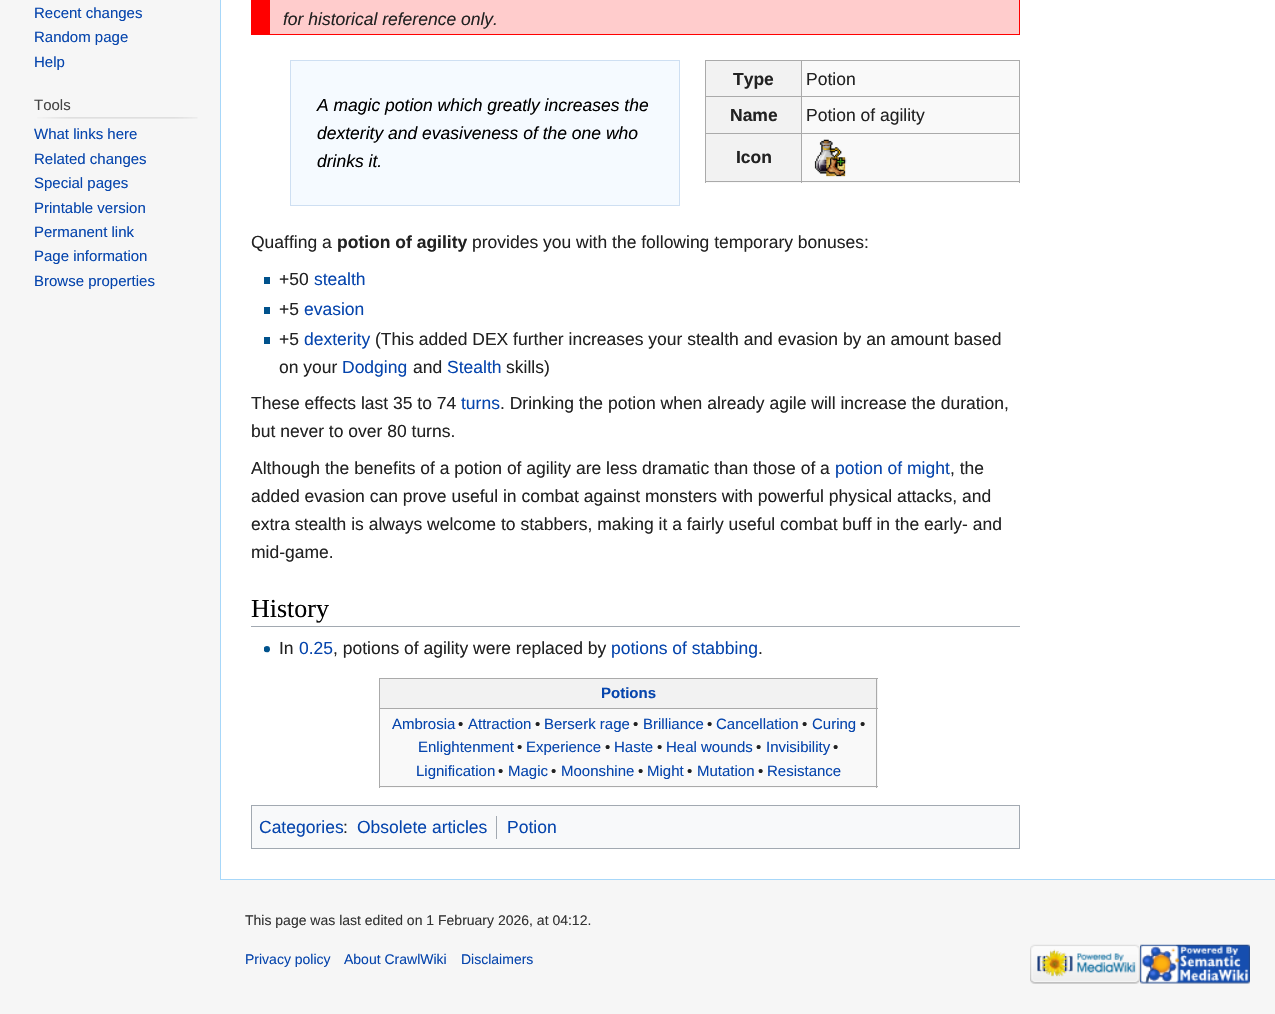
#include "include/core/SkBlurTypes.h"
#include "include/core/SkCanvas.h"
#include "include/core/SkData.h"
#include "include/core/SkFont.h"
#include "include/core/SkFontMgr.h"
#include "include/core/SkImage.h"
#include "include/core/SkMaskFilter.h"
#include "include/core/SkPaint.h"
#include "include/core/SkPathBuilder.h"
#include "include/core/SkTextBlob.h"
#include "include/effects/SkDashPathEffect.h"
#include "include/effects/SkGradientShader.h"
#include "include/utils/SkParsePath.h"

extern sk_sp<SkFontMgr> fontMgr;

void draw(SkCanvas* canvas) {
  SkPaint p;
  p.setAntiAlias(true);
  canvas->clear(SkColorSetRGB(246, 246, 246));
  canvas->drawImageRect(SkImages::DeferredFromEncodedData(SkData::MakeFromFileName("images/1.png")), SkRect::MakeLTRB(37, 117, 198, 119), SkSamplingOptions());
  p.setColor(SK_ColorWHITE);
  canvas->drawRect(SkRect::MakeLTRB(221, 0, 1275, 879), p);
  p.setColor(SkColorSetRGB(167, 215, 249));
  canvas->drawRect(SkRect::MakeLTRB(220, 879, 1275, 880), p);
  canvas->drawRect(SkRect::MakeLTRB(220, 0, 221, 880), p);
  p.setColor(SkColorSetRGB(255, 204, 204));
  canvas->drawRect(SkRect::MakeLTRB(270, 0, 1019, 34), p);
  p.setColor(SkColorSetRGB(255, 0, 0));
  canvas->drawRect(SkRect::MakeLTRB(1019, 0, 1020, 35), p);
  canvas->drawRect(SkRect::MakeLTRB(270, 34, 1020, 35), p);
  canvas->drawRect(SkRect::MakeLTRB(251, 0, 270, 35), p);
  p.setColor(SkColorSetRGB(245, 250, 255));
  canvas->drawRect(SkRect::MakeLTRB(290.5f, 60.5f, 679.5f, 205.5f), p);
  p.setStyle(SkPaint::kStroke_Style);
  p.setStrokeWidth(1);
  p.setColor(SkColorSetRGB(206, 223, 242));
  canvas->drawRect(SkRect::MakeLTRB(290.5f, 60.5f, 679.5f, 205.5f), p);
  p.setStyle(SkPaint::kFill_Style);
  p.setColor(SkColorSetRGB(249, 249, 249));
  canvas->drawRect(SkRect::MakeLTRB(706, 61, 1019, 183), p);
  p.setColor(SkColorSetRGB(242, 242, 242));
  canvas->drawRect(SkRect::MakeLTRB(706, 61, 801, 133), p);
  p.setColor(SkColorSetRGB(170, 170, 170));
  canvas->drawRect(SkRect::MakeLTRB(801, 60, 1020, 61), p);
  canvas->drawRect(SkRect::MakeLTRB(801, 96, 1020, 97), p);
  canvas->drawRect(SkRect::MakeLTRB(801, 133, 1020, 134), p);
  canvas->drawRect(SkRect::MakeLTRB(1019, 133, 1020, 183), p);
  canvas->drawRect(SkRect::MakeLTRB(801, 181, 1020, 182), p);
  canvas->drawRect(SkRect::MakeLTRB(801, 133, 802, 183), p);
  canvas->drawRect(SkRect::MakeLTRB(705, 133, 803, 134), p);
  canvas->drawRect(SkRect::MakeLTRB(801, 96, 802, 134), p);
  canvas->drawRect(SkRect::MakeLTRB(705, 96, 803, 97), p);
  canvas->drawRect(SkRect::MakeLTRB(801, 60, 802, 98), p);
  canvas->drawRect(SkRect::MakeLTRB(705, 60, 803, 61), p);
  canvas->drawRect(SkRect::MakeLTRB(705, 181, 803, 182), p);
  canvas->drawRect(SkRect::MakeLTRB(705, 133, 706, 183), p);
  canvas->drawRect(SkRect::MakeLTRB(705, 96, 706, 134), p);
  canvas->drawRect(SkRect::MakeLTRB(705, 60, 706, 98), p);
  canvas->drawRect(SkRect::MakeLTRB(1019, 96, 1020, 134), p);
  canvas->drawRect(SkRect::MakeLTRB(1019, 60, 1020, 98), p);
  p.setColor(SkColorSetRGB(242, 242, 242));
  canvas->drawRect(SkRect::MakeLTRB(706, 134, 801, 181), p);
  canvas->drawImageRect(SkImages::DeferredFromEncodedData(SkData::MakeFromFileName("images/2.png")), SkRect::MakeLTRB(814, 139, 847, 177), SkSamplingOptions());
  p.setColor(SkColorSetRGB(0, 82, 140));
  canvas->drawRect(SkRect::MakeLTRB(264, 277, 270, 284), p);
  canvas->drawRect(SkRect::MakeLTRB(264, 307, 270, 314), p);
  canvas->drawRect(SkRect::MakeLTRB(264, 337, 270, 344), p);
  p.setColor(SkColorSetRGB(162, 169, 177));
  canvas->drawRect(SkRect::MakeLTRB(251, 626, 1020, 627), p);
  canvas->drawImageRect(SkImages::DeferredFromEncodedData(SkData::MakeFromFileName("images/3.png")), SkRect::MakeLTRB(264, 646, 270, 653), SkSamplingOptions());
  p.setColor(SkColorSetRGB(249, 249, 249));
  canvas->drawRect(SkRect::MakeLTRB(380, 709, 878, 788), p);
  p.setColor(SkColorSetRGB(170, 170, 170));
  canvas->drawRect(SkRect::MakeLTRB(379, 678, 878, 679), p);
  p.setColor(SkColorSetRGB(242, 242, 242));
  canvas->drawRect(SkRect::MakeLTRB(380, 679, 878, 708), p);
  p.setColor(SkColorSetRGB(170, 170, 170));
  canvas->drawRect(SkRect::MakeLTRB(876, 678, 877, 788), p);
  canvas->drawRect(SkRect::MakeLTRB(379, 786, 878, 787), p);
  canvas->drawRect(SkRect::MakeLTRB(379, 678, 380, 788), p);
  canvas->drawRect(SkRect::MakeLTRB(379, 708, 878, 709), p);
  p.setColor(SkColorSetRGB(248, 249, 250));
  canvas->drawRect(SkRect::MakeLTRB(251.5f, 805.5f, 1019.5f, 848.5f), p);
  p.setStyle(SkPaint::kStroke_Style);
  p.setColor(SkColorSetRGB(162, 169, 177));
  canvas->drawRect(SkRect::MakeLTRB(251.5f, 805.5f, 1019.5f, 848.5f), p);
  p.setStyle(SkPaint::kFill_Style);
  canvas->drawRect(SkRect::MakeLTRB(496, 816, 497, 839), p);
  canvas->drawImageRect(SkImages::DeferredFromEncodedData(SkData::MakeFromFileName("images/4.png")), SkRect::MakeLTRB(1030, 944, 1140, 984), SkSamplingOptions());
  canvas->drawImageRect(SkImages::DeferredFromEncodedData(SkData::MakeFromFileName("images/5.png")), SkRect::MakeLTRB(1140, 944, 1250, 984), SkSamplingOptions());
  SkFont font1(fontMgr->matchFamilyStyle("Liberation Sans", SkFontStyle::Normal()), 15);
  font1.setSubpixel(true);
  p.setColor(SkColorSetRGB(6, 69, 173));
  canvas->drawString("Recent changes", 34, 18, font1, p);
  canvas->drawString("Random page", 34, 42, font1, p);
  canvas->drawString("Help", 34, 67, font1, p);
  p.setColor(SkColorSetRGB(68, 68, 68));
  canvas->drawString("Tools", 34, 110, font1, p);
  p.setColor(SkColorSetRGB(6, 69, 173));
  canvas->drawString("What links here", 34, 139, font1, p);
  canvas->drawString("Related changes", 34, 164, font1, p);
  canvas->drawString("Special pages", 34, 188, font1, p);
  canvas->drawString("Printable version", 34, 213, font1, p);
  canvas->drawString("Permanent link", 34, 237, font1, p);
  canvas->drawString("Page information", 34, 261, font1, p);
  canvas->drawString("Browse properties", 34, 286, font1, p);
  SkFont font2(fontMgr->matchFamilyStyle("Liberation Sans", SkFontStyle::Italic()), 17.5f);
  font2.setSubpixel(true);
  p.setColor(SkColorSetRGB(34, 34, 34));
  canvas->drawString("for historical reference only.", 283, 25, font2, p);
  p.setColor(SK_ColorBLACK);
  canvas->drawString("A magic potion which greatly increases the", 317, 111, font2, p);
  canvas->drawString("dexterity and evasiveness of the one who", 317, 139, font2, p);
  canvas->drawString("drinks it.", 317, 167, font2, p);
  SkFont font3(fontMgr->matchFamilyStyle("Liberation Sans", SkFontStyle::Bold()), 17.5f);
  font3.setSubpixel(true);
  p.setColor(SkColorSetRGB(34, 34, 34));
  canvas->drawString("Type", 733, 85, font3, p);
  SkFont font4(fontMgr->matchFamilyStyle("Liberation Sans", SkFontStyle::Normal()), 17.5f);
  font4.setSubpixel(true);
  canvas->drawString("Potion", 806, 85, font4, p);
  canvas->drawString("Name", 730, 121, font3, p);
  canvas->drawString("Potion of agility", 806, 121, font4, p);
  canvas->drawString("Icon", 736, 163, font3, p);
  canvas->drawString("Quaffing a", 251, 248, font4, p);
  canvas->drawString("potion of agility", 337, 248, font3, p);
  canvas->drawString("provides you with the following temporary bonuses:", 472, 248, font4, p);
  canvas->drawString("+50", 279, 285, font4, p);
  p.setColor(SkColorSetRGB(6, 69, 173));
  canvas->drawString("stealth", 314, 285, font4, p);
  p.setColor(SkColorSetRGB(34, 34, 34));
  canvas->drawString("+5", 279, 315, font4, p);
  p.setColor(SkColorSetRGB(6, 69, 173));
  canvas->drawString("evasion", 304, 315, font4, p);
  p.setColor(SkColorSetRGB(34, 34, 34));
  canvas->drawString("+5", 279, 345, font4, p);
  p.setColor(SkColorSetRGB(6, 69, 173));
  canvas->drawString("dexterity", 304, 345, font4, p);
  p.setColor(SkColorSetRGB(34, 34, 34));
  canvas->drawString("(This added DEX further increases your stealth and evasion by an amount based", 375, 345, font4, p);
  canvas->drawString("on your", 279, 373, font4, p);
  p.setColor(SkColorSetRGB(6, 69, 173));
  canvas->drawString("Dodging", 342, 373, font4, p);
  p.setColor(SkColorSetRGB(34, 34, 34));
  canvas->drawString("and", 413, 373, font4, p);
  p.setColor(SkColorSetRGB(6, 69, 173));
  canvas->drawString("Stealth", 447, 373, font4, p);
  p.setColor(SkColorSetRGB(34, 34, 34));
  canvas->drawString("skills)", 506, 373, font4, p);
  canvas->drawString("These effects last 35 to 74", 251, 409, font4, p);
  p.setColor(SkColorSetRGB(6, 69, 173));
  canvas->drawString("turns", 461, 409, font4, p);
  p.setColor(SkColorSetRGB(34, 34, 34));
  canvas->drawString(". Drinking the potion when already agile will increase the duration,", 500, 409, font4, p);
  canvas->drawString("but never to over 80 turns.", 251, 437, font4, p);
  canvas->drawString("Although the benefits of a potion of agility are less dramatic than those of a", 251, 474, font4, p);
  p.setColor(SkColorSetRGB(6, 69, 173));
  canvas->drawString("potion of might", 835, 474, font4, p);
  p.setColor(SkColorSetRGB(34, 34, 34));
  canvas->drawString(", the", 950, 474, font4, p);
  canvas->drawString("added evasion can prove useful in combat against monsters with powerful physical attacks, and", 251, 502, font4, p);
  canvas->drawString("extra stealth is always welcome to stabbers, making it a fairly useful combat buff in the early- and", 251, 530, font4, p);
  canvas->drawString("mid-game.", 251, 558, font4, p);
  SkFont font5(fontMgr->matchFamilyStyle("Liberation Serif", SkFontStyle::Normal()), 26);
  font5.setSubpixel(true);
  p.setColor(SK_ColorBLACK);
  canvas->drawString("History", 251, 617, font5, p);
  p.setColor(SkColorSetRGB(34, 34, 34));
  canvas->drawString("In", 279, 654, font4, p);
  p.setColor(SkColorSetRGB(6, 69, 173));
  canvas->drawString("0.25", 299, 654, font4, p);
  p.setColor(SkColorSetRGB(34, 34, 34));
  canvas->drawString(", potions of agility were replaced by", 333, 654, font4, p);
  p.setColor(SkColorSetRGB(6, 69, 173));
  canvas->drawString("potions of stabbing", 611, 654, font4, p);
  p.setColor(SkColorSetRGB(34, 34, 34));
  canvas->drawString(".", 758, 654, font4, p);
  SkFont font6(fontMgr->matchFamilyStyle("Liberation Sans", SkFontStyle::Bold()), 15);
  font6.setSubpixel(true);
  p.setColor(SkColorSetRGB(6, 69, 173));
  canvas->drawString("Potions", 601, 698, font6, p);
  canvas->drawString("Ambrosia", 392, 729, font1, p);
  p.setColor(SkColorSetRGB(34, 34, 34));
  canvas->drawString("•", 458, 729, font1, p);
  p.setColor(SkColorSetRGB(6, 69, 173));
  canvas->drawString("Attraction", 468, 729, font1, p);
  p.setColor(SkColorSetRGB(34, 34, 34));
  canvas->drawString("•", 535, 729, font1, p);
  p.setColor(SkColorSetRGB(6, 69, 173));
  canvas->drawString("Berserk rage", 544, 729, font1, p);
  p.setColor(SkColorSetRGB(34, 34, 34));
  canvas->drawString("•", 633, 729, font1, p);
  p.setColor(SkColorSetRGB(6, 69, 173));
  canvas->drawString("Brilliance", 643, 729, font1, p);
  p.setColor(SkColorSetRGB(34, 34, 34));
  canvas->drawString("•", 707, 729, font1, p);
  p.setColor(SkColorSetRGB(6, 69, 173));
  canvas->drawString("Cancellation", 716, 729, font1, p);
  p.setColor(SkColorSetRGB(34, 34, 34));
  canvas->drawString("•", 802, 729, font1, p);
  p.setColor(SkColorSetRGB(6, 69, 173));
  canvas->drawString("Curing", 812, 729, font1, p);
  p.setColor(SkColorSetRGB(34, 34, 34));
  canvas->drawString("•", 860, 729, font1, p);
  p.setColor(SkColorSetRGB(6, 69, 173));
  canvas->drawString("Enlightenment", 418, 752, font1, p);
  p.setColor(SkColorSetRGB(34, 34, 34));
  canvas->drawString("•", 517, 752, font1, p);
  p.setColor(SkColorSetRGB(6, 69, 173));
  canvas->drawString("Experience", 526, 752, font1, p);
  p.setColor(SkColorSetRGB(34, 34, 34));
  canvas->drawString("•", 605, 752, font1, p);
  p.setColor(SkColorSetRGB(6, 69, 173));
  canvas->drawString("Haste", 614, 752, font1, p);
  p.setColor(SkColorSetRGB(34, 34, 34));
  canvas->drawString("•", 657, 752, font1, p);
  p.setColor(SkColorSetRGB(6, 69, 173));
  canvas->drawString("Heal wounds", 666, 752, font1, p);
  p.setColor(SkColorSetRGB(34, 34, 34));
  canvas->drawString("•", 756, 752, font1, p);
  p.setColor(SkColorSetRGB(6, 69, 173));
  canvas->drawString("Invisibility", 766, 752, font1, p);
  p.setColor(SkColorSetRGB(34, 34, 34));
  canvas->drawString("•", 833, 752, font1, p);
  p.setColor(SkColorSetRGB(6, 69, 173));
  canvas->drawString("Lignification", 416, 776, font1, p);
  p.setColor(SkColorSetRGB(34, 34, 34));
  canvas->drawString("•", 498, 776, font1, p);
  p.setColor(SkColorSetRGB(6, 69, 173));
  canvas->drawString("Magic", 508, 776, font1, p);
  p.setColor(SkColorSetRGB(34, 34, 34));
  canvas->drawString("•", 551, 776, font1, p);
  p.setColor(SkColorSetRGB(6, 69, 173));
  canvas->drawString("Moonshine", 561, 776, font1, p);
  p.setColor(SkColorSetRGB(34, 34, 34));
  canvas->drawString("•", 638, 776, font1, p);
  p.setColor(SkColorSetRGB(6, 69, 173));
  canvas->drawString("Might", 647, 776, font1, p);
  p.setColor(SkColorSetRGB(34, 34, 34));
  canvas->drawString("•", 687, 776, font1, p);
  p.setColor(SkColorSetRGB(6, 69, 173));
  canvas->drawString("Mutation", 697, 776, font1, p);
  p.setColor(SkColorSetRGB(34, 34, 34));
  canvas->drawString("•", 758, 776, font1, p);
  p.setColor(SkColorSetRGB(6, 69, 173));
  canvas->drawString("Resistance", 767, 776, font1, p);
  canvas->drawString("Categories", 259, 833, font4, p);
  p.setColor(SkColorSetRGB(34, 34, 34));
  canvas->drawString(":", 343, 833, font4, p);
  p.setColor(SkColorSetRGB(6, 69, 173));
  canvas->drawString("Obsolete articles", 357, 833, font4, p);
  canvas->drawString("Potion", 507, 833, font4, p);
  SkFont font7(fontMgr->matchFamilyStyle("Liberation Sans", SkFontStyle::Normal()), 14);
  font7.setSubpixel(true);
  p.setColor(SkColorSetRGB(51, 51, 51));
  canvas->drawString("This page was last edited on 1 February 2026, at 04:12.", 245, 925, font7, p);
  p.setColor(SkColorSetRGB(6, 69, 173));
  canvas->drawString("Privacy policy", 245, 964, font7, p);
  canvas->drawString("About CrawlWiki", 344, 964, font7, p);
  canvas->drawString("Disclaimers", 461, 964, font7, p);
}
